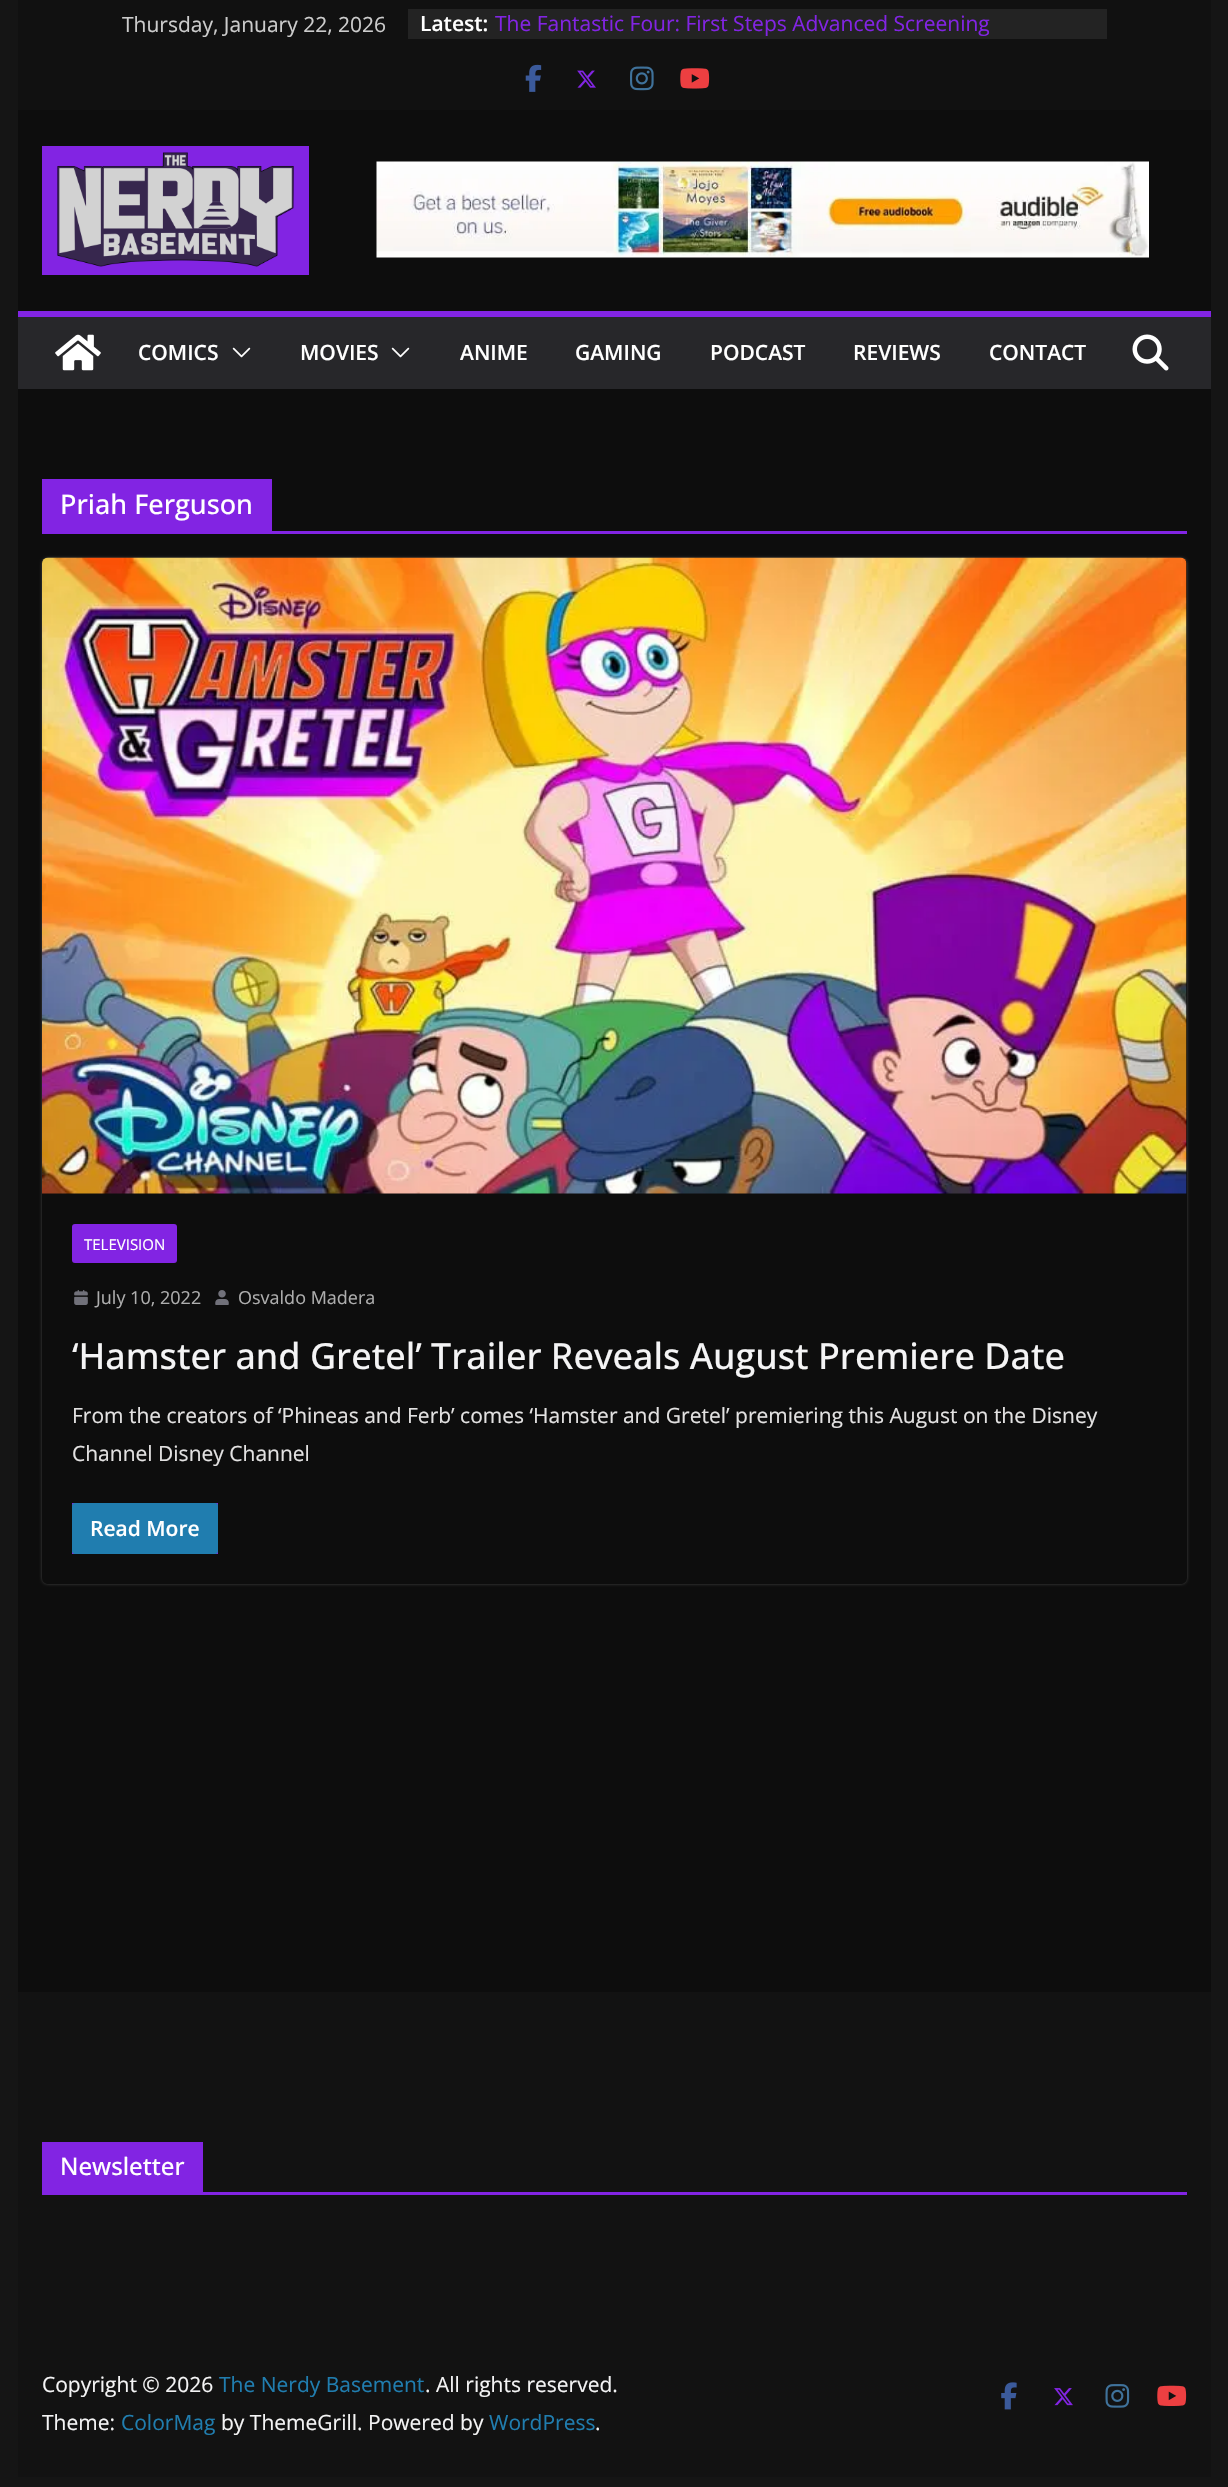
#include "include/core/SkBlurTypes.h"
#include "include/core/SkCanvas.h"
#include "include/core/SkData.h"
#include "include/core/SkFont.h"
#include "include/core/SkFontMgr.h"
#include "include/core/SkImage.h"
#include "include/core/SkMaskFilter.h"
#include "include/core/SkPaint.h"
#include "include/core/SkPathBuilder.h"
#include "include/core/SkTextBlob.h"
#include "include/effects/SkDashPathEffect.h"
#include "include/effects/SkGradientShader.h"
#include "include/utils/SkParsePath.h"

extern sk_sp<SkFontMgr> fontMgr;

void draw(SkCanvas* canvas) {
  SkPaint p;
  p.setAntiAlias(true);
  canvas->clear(SkColorSetRGB(21, 21, 21));
  p.setColor(SkColorSetRGB(17, 17, 17));
  canvas->drawRect(SkRect::MakeLTRB(18, 0, 1211, 110), p);
  p.setColor(SkColorSetRGB(35, 35, 35));
  canvas->drawRect(SkRect::MakeLTRB(408, 9, 1107, 39), p);
  canvas->drawImageRect(SkImages::DeferredFromEncodedData(SkData::MakeFromFileName("images/1.png")), SkRect::MakeLTRB(525, 64, 542, 92), SkSamplingOptions());
  canvas->drawImageRect(SkImages::DeferredFromEncodedData(SkData::MakeFromFileName("images/2.png")), SkRect::MakeLTRB(577, 70, 596, 88), SkSamplingOptions());
  canvas->drawImageRect(SkImages::DeferredFromEncodedData(SkData::MakeFromFileName("images/3.png")), SkRect::MakeLTRB(630, 66, 654, 91), SkSamplingOptions());
  canvas->drawImageRect(SkImages::DeferredFromEncodedData(SkData::MakeFromFileName("images/4.png")), SkRect::MakeLTRB(680, 68, 710, 89), SkSamplingOptions());
  p.setColor(SkColorSetRGB(13, 13, 13));
  canvas->drawRect(SkRect::MakeLTRB(18, 110, 1211, 311), p);
  p.setColor(SkColorSetRGB(130, 36, 227));
  canvas->drawRect(SkRect::MakeLTRB(42, 146, 309, 275), p);
  canvas->drawImageRect(SkImages::DeferredFromEncodedData(SkData::MakeFromFileName("images/5.png")), SkRect::MakeLTRB(57, 152, 294, 267), SkSamplingOptions());
  canvas->drawImageRect(SkImages::DeferredFromEncodedData(SkData::MakeFromFileName("images/6.png")), SkRect::MakeLTRB(376, 161, 1149, 258), SkSamplingOptions());
  p.setColor(SkColorSetRGB(39, 39, 42));
  canvas->drawRect(SkRect::MakeLTRB(18, 317, 1211, 389), p);
  p.setColor(SkColorSetRGB(130, 36, 227));
  canvas->drawRect(SkRect::MakeLTRB(18, 311, 1211, 317), p);
  canvas->drawImageRect(SkImages::DeferredFromEncodedData(SkData::MakeFromFileName("images/7.png")), SkRect::MakeLTRB(55, 334, 101, 371), SkSamplingOptions());
  canvas->drawImageRect(SkImages::DeferredFromEncodedData(SkData::MakeFromFileName("images/8.png")), SkRect::MakeLTRB(232, 347, 251, 358), SkSamplingOptions());
  canvas->drawImageRect(SkImages::DeferredFromEncodedData(SkData::MakeFromFileName("images/8.png")), SkRect::MakeLTRB(391, 347, 410, 358), SkSamplingOptions());
  canvas->drawImageRect(SkImages::DeferredFromEncodedData(SkData::MakeFromFileName("images/9.png")), SkRect::MakeLTRB(1132, 334, 1169, 371), SkSamplingOptions());
  p.setColor(SkColorSetRGB(13, 13, 13));
  canvas->drawRect(SkRect::MakeLTRB(18, 389, 1211, 1992), p);
  p.setColor(SkColorSetRGB(130, 36, 227));
  canvas->drawRect(SkRect::MakeLTRB(42, 531, 1187, 534), p);
  canvas->drawRect(SkRect::MakeLTRB(42, 479, 272, 531), p);
  canvas->save();
  canvas->clipPath(SkPathBuilder(SkPathFillType::kEvenOdd).moveTo(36, 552).lineTo(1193, 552).lineTo(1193, 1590).lineTo(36, 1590).close().moveTo(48, 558).lineTo(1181, 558).cubicTo(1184.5f, 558, 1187, 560.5f, 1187, 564).lineTo(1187, 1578).cubicTo(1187, 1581.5f, 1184.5f, 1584, 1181, 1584).lineTo(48, 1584).cubicTo(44.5f, 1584, 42, 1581.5f, 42, 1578).lineTo(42, 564).cubicTo(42, 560.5f, 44.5f, 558, 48, 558).close().detach(), true);
  p.setColor(SkColorSetARGB(61, 255, 255, 255));
  p.setMaskFilter(SkMaskFilter::MakeBlur(kNormal_SkBlurStyle, 1.5f));
  canvas->drawRoundRect(SkRect::MakeLTRB(42, 558, 1187, 1584), 6, 6, p);
  p.setMaskFilter(nullptr);
  canvas->restore();
  canvas->drawImageRect(SkImages::DeferredFromEncodedData(SkData::MakeFromFileName("images/10.png")), SkRect::MakeLTRB(42, 557, 1187, 1194), SkSamplingOptions());
  p.setColor(SkColorSetRGB(130, 36, 227));
  canvas->drawRoundRect(SkRect::MakeLTRB(72, 1224, 177, 1263), 3, 3, p);
  canvas->drawImageRect(SkImages::DeferredFromEncodedData(SkData::MakeFromFileName("images/11.png")), SkRect::MakeLTRB(74, 1290, 88, 1305), SkSamplingOptions());
  canvas->drawImageRect(SkImages::DeferredFromEncodedData(SkData::MakeFromFileName("images/12.png")), SkRect::MakeLTRB(215, 1290, 229, 1305), SkSamplingOptions());
  canvas->drawRect(SkRect::MakeLTRB(72, 1503, 218, 1554), p);
  p.setColor(SkColorSetRGB(32, 125, 175));
  canvas->drawRoundRect(SkRect::MakeLTRB(72, 1503, 218, 1554), 3, 3, p);
  p.setColor(SkColorSetRGB(18, 18, 18));
  canvas->drawRect(SkRect::MakeLTRB(18, 1992, 1211, 2477), p);
  p.setColor(SkColorSetRGB(130, 36, 227));
  canvas->drawRect(SkRect::MakeLTRB(42, 2192, 1187, 2195), p);
  canvas->drawRect(SkRect::MakeLTRB(42, 2142, 203, 2192), p);
  canvas->drawImageRect(SkImages::DeferredFromEncodedData(SkData::MakeFromFileName("images/13.png")), SkRect::MakeLTRB(1001, 2382, 1017, 2410), SkSamplingOptions());
  canvas->drawImageRect(SkImages::DeferredFromEncodedData(SkData::MakeFromFileName("images/14.png")), SkRect::MakeLTRB(1054, 2388, 1073, 2406), SkSamplingOptions());
  canvas->drawImageRect(SkImages::DeferredFromEncodedData(SkData::MakeFromFileName("images/15.png")), SkRect::MakeLTRB(1105, 2384, 1130, 2408), SkSamplingOptions());
  canvas->drawImageRect(SkImages::DeferredFromEncodedData(SkData::MakeFromFileName("images/16.png")), SkRect::MakeLTRB(1157, 2385, 1187, 2406), SkSamplingOptions());
  SkFont font1(fontMgr->matchFamilyStyle("Open Sans", SkFontStyle::Normal()), 21);
  font1.setSubpixel(true);
  p.setColor(SkColorSetRGB(204, 204, 204));
  canvas->drawString("Thursday, January 22, 2026", 122, 32, font1, p);
  SkFont font2(fontMgr->matchFamilyStyle("Open Sans", SkFontStyle(600, SkFontStyle::kNormal_Width, SkFontStyle::kUpright_Slant)), 21);
  font2.setSubpixel(true);
  p.setColor(SK_ColorWHITE);
  canvas->drawString("Latest:", 420, 31, font2, p);
  p.setColor(SkColorSetRGB(130, 36, 227));
  canvas->drawString("The Fantastic Four: First Steps Advanced Screening", 495, 31, font1, p);
  p.setColor(SK_ColorWHITE);
  canvas->drawString("COMICS", 138, 360, font2, p);
  canvas->drawString("MOVIES", 300, 360, font2, p);
  canvas->drawString("ANIME", 460, 360, font2, p);
  canvas->drawString("GAMING", 575, 360, font2, p);
  canvas->drawString("PODCAST", 710, 360, font2, p);
  canvas->drawString("REVIEWS", 853, 360, font2, p);
  canvas->drawString("CONTACT", 989, 360, font2, p);
  SkFont font3(fontMgr->matchFamilyStyle("Open Sans", SkFontStyle(500, SkFontStyle::kNormal_Width, SkFontStyle::kUpright_Slant)), 27);
  font3.setSubpixel(true);
  canvas->drawString("Priah Ferguson", 60, 514, font3, p);
  SkFont font4(fontMgr->matchFamilyStyle("Open Sans", SkFontStyle::Normal()), 15);
  font4.setSubpixel(true);
  canvas->drawString("TELEVISION", 84, 1250, font4, p);
  SkFont font5(fontMgr->matchFamilyStyle("Open Sans", SkFontStyle::Normal()), 18);
  font5.setSubpixel(true);
  p.setColor(SkColorSetRGB(174, 174, 174));
  canvas->drawString("July 10, 2022", 96, 1304, font5, p);
  canvas->drawString("Osvaldo Madera", 238, 1304, font5, p);
  SkFont font6(fontMgr->matchFamilyStyle("Open Sans", SkFontStyle(500, SkFontStyle::kNormal_Width, SkFontStyle::kUpright_Slant)), 36);
  font6.setSubpixel(true);
  p.setColor(SkColorSetRGB(244, 244, 245));
  canvas->drawString("‘Hamster and Gretel’ Trailer Reveals August Premiere Date", 72, 1369, font6, p);
  p.setColor(SkColorSetRGB(227, 226, 226));
  canvas->drawString("From the creators of ‘Phineas and Ferb’ comes ‘Hamster and Gretel’ premiering this August on the Disney", 72, 1423, font1, p);
  canvas->drawString("Channel Disney Channel", 72, 1461, font1, p);
  p.setColor(SK_ColorWHITE);
  canvas->drawString("Read More", 90, 1536, font2, p);
  SkFont font7(fontMgr->matchFamilyStyle("Open Sans", SkFontStyle(500, SkFontStyle::kNormal_Width, SkFontStyle::kUpright_Slant)), 24);
  font7.setSubpixel(true);
  canvas->drawString("Newsletter", 60, 2175, font7, p);
  p.setColor(SkColorSetRGB(244, 244, 245));
  canvas->drawString("Copyright © 2026", 42, 2392, font1, p);
  p.setColor(SkColorSetRGB(32, 125, 175));
  canvas->drawString("The Nerdy Basement", 219, 2392, font1, p);
  p.setColor(SkColorSetRGB(244, 244, 245));
  canvas->drawString(". All rights reserved.", 425, 2392, font1, p);
  canvas->drawString("Theme:", 42, 2430, font1, p);
  p.setColor(SkColorSetRGB(32, 125, 175));
  canvas->drawString("ColorMag", 121, 2430, font1, p);
  p.setColor(SkColorSetRGB(244, 244, 245));
  canvas->drawString("by ThemeGrill. Powered by", 221, 2430, font1, p);
  p.setColor(SkColorSetRGB(32, 125, 175));
  canvas->drawString("WordPress", 489, 2430, font1, p);
  p.setColor(SkColorSetRGB(244, 244, 245));
  canvas->drawString(".", 595, 2430, font1, p);
}
